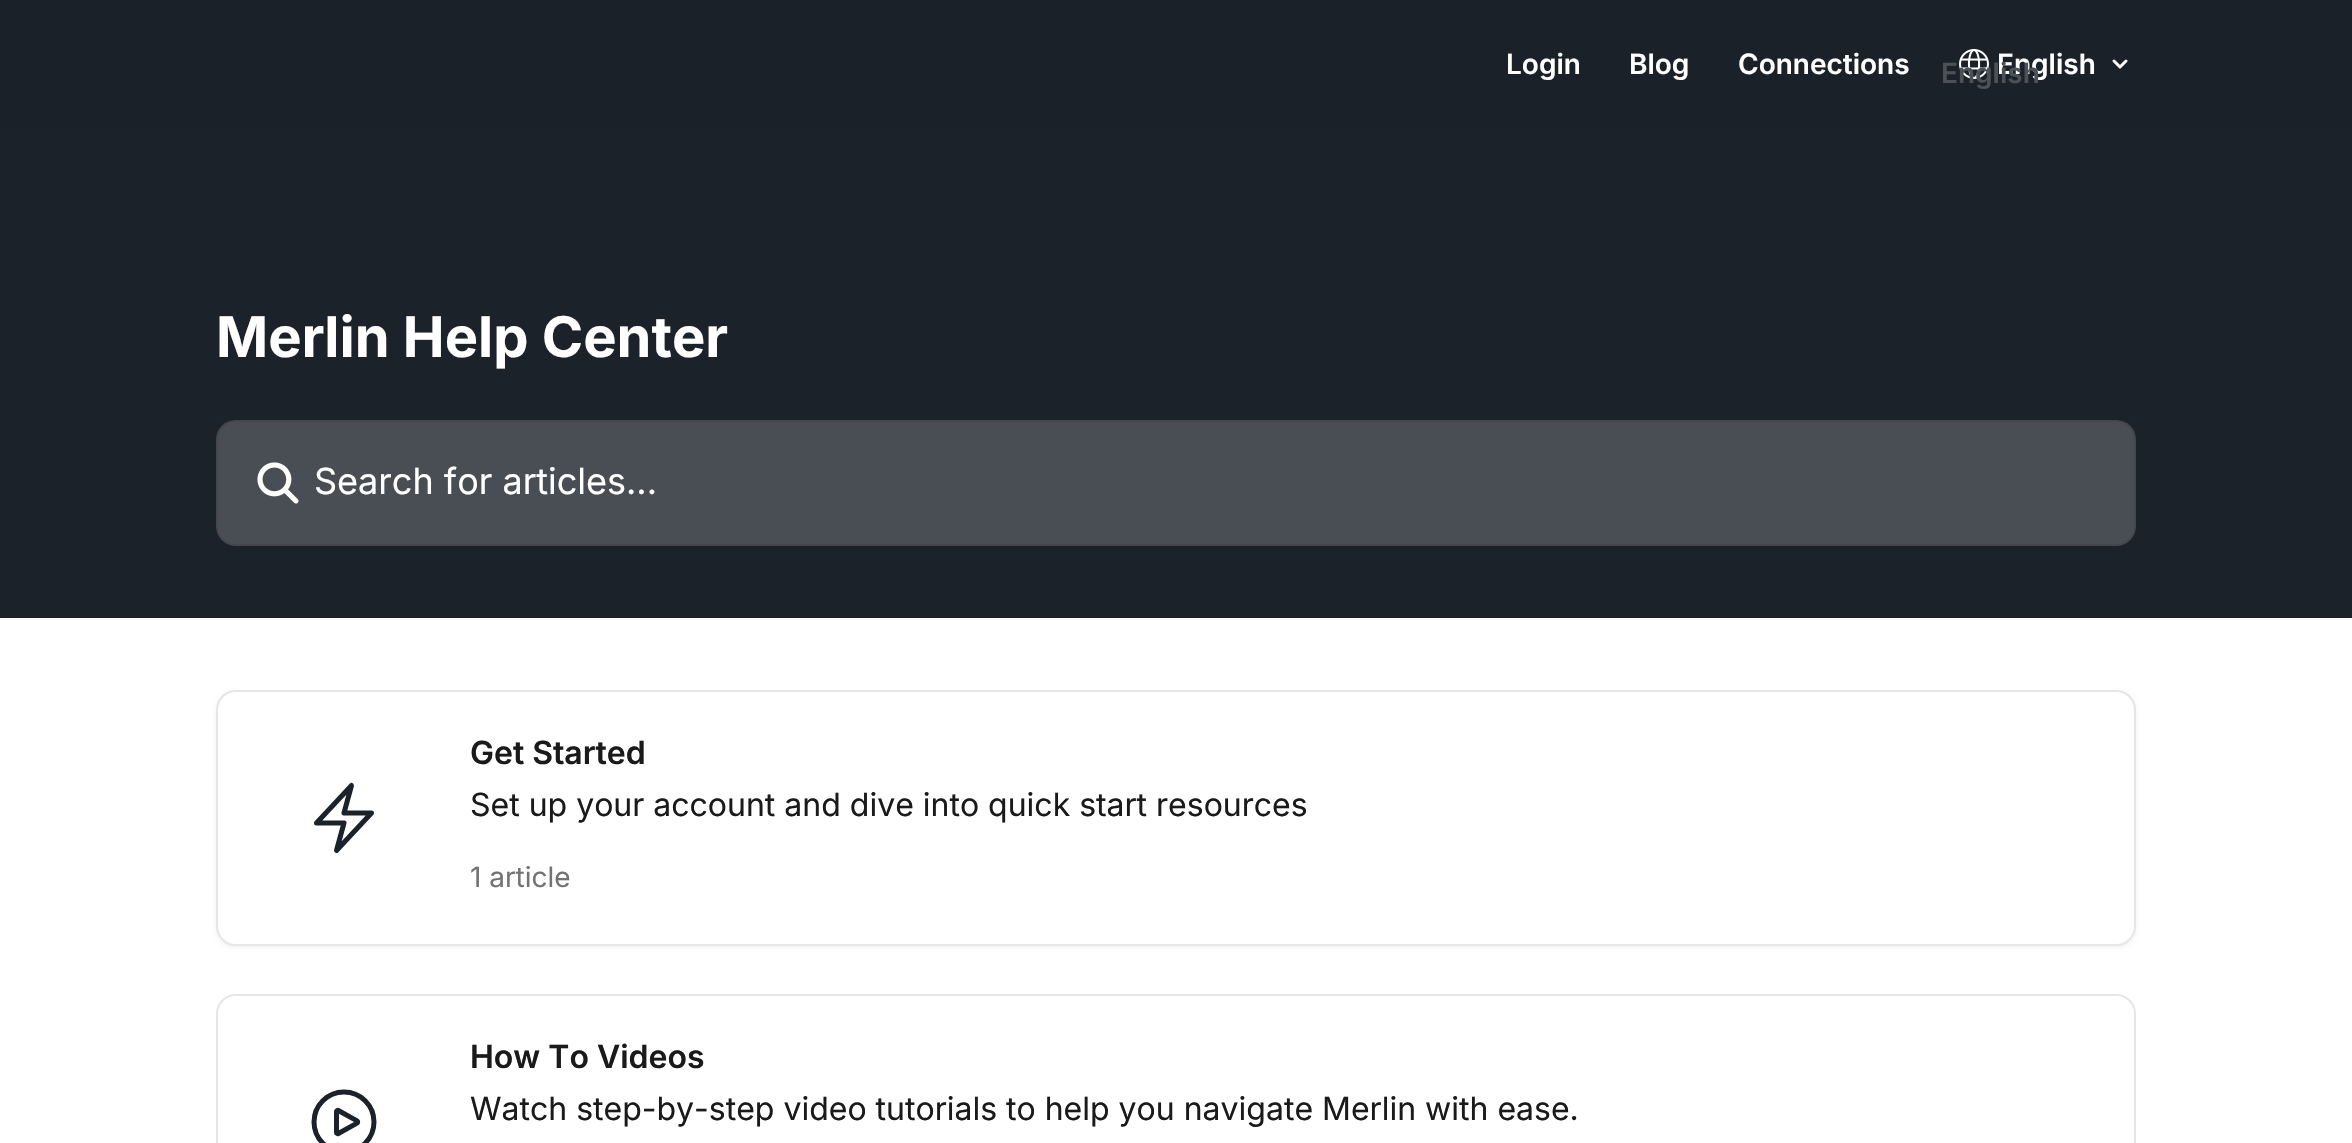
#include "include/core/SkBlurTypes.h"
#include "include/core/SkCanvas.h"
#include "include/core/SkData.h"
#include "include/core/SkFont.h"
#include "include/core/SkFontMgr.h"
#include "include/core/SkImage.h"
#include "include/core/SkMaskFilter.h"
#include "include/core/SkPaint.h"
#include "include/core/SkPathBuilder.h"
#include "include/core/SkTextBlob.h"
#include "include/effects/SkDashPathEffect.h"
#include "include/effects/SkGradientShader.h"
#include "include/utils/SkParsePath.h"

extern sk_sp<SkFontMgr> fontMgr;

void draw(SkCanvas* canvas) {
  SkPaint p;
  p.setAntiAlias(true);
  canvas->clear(SK_ColorWHITE);
  p.setColor(SkColorSetRGB(26, 33, 41));
  canvas->drawRect(SkRect::MakeLTRB(0, 0, 2352, 128), p);
  canvas->drawImageRect(SkImages::DeferredFromEncodedData(SkData::MakeFromFileName("images/1.png")), SkRect::MakeLTRB(1959, 49, 1989, 79), SkSamplingOptions());
  p.setStyle(SkPaint::kStroke_Style);
  p.setStrokeWidth(3);
  p.setStrokeCap(SkPaint::kRound_Cap);
  p.setStrokeJoin(SkPaint::kRound_Join);
  p.setColor(SK_ColorWHITE);
  canvas->drawPath(SkPathBuilder().moveTo(2114, 61).lineTo(2120, 67).lineTo(2126, 61).detach(), p);
  p.setStyle(SkPaint::kFill_Style);
  p.setColor(SkColorSetRGB(27, 34, 41));
  canvas->drawRect(SkRect::MakeLTRB(0, 128, 2352, 618), p);
  p.setColor(SkColorSetRGB(73, 78, 84));
  canvas->drawRoundRect(SkRect::MakeLTRB(216, 420, 2136, 546), 20, 20, p);
  p.setStyle(SkPaint::kStroke_Style);
  p.setStrokeWidth(2);
  p.setStrokeCap(SkPaint::kButt_Cap);
  p.setStrokeJoin(SkPaint::kMiter_Join);
  p.setColor(SkColorSetARGB(20, 0, 0, 0));
  canvas->drawRoundRect(SkRect::MakeLTRB(217, 421, 2135, 545), 19, 19, p);
  canvas->drawImageRect(SkImages::DeferredFromEncodedData(SkData::MakeFromFileName("images/2.png")), SkRect::MakeLTRB(257, 462, 299, 504), SkSamplingOptions());
  p.setStyle(SkPaint::kFill_Style);
  p.setColor(SkColorSetARGB(13, 0, 0, 0));
  p.setMaskFilter(SkMaskFilter::MakeBlur(kNormal_SkBlurStyle, 2));
  canvas->drawRoundRect(SkRect::MakeLTRB(216, 692, 2136, 948), 20, 20, p);
  p.setMaskFilter(nullptr);
  p.setColor(SK_ColorWHITE);
  canvas->drawRoundRect(SkRect::MakeLTRB(217, 691, 2135, 945), 19, 19, p);
  p.setStyle(SkPaint::kStroke_Style);
  p.setColor(SkColorSetRGB(230, 230, 230));
  canvas->drawRoundRect(SkRect::MakeLTRB(217, 691, 2135, 945), 19, 19, p);
  canvas->drawImageRect(SkImages::DeferredFromEncodedData(SkData::MakeFromFileName("images/3.png")), SkRect::MakeLTRB(314, 782, 374, 854), SkSamplingOptions());
  canvas->drawRoundRect(SkRect::MakeLTRB(217, 995, 2135, 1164), 19, 19, p);
  canvas->drawImageRect(SkImages::DeferredFromEncodedData(SkData::MakeFromFileName("images/4.png")), SkRect::MakeLTRB(311, 1089, 377, 1143), SkSamplingOptions());
  SkFont font1(fontMgr->matchFamilyStyle("Inter", SkFontStyle(600, SkFontStyle::kNormal_Width, SkFontStyle::kUpright_Slant)), 28);
  font1.setSubpixel(true);
  p.setStyle(SkPaint::kFill_Style);
  p.setColor(SK_ColorWHITE);
  canvas->drawString("Login", 1506, 74, font1, p);
  canvas->drawString("Blog", 1629, 74, font1, p);
  canvas->drawString("Connections", 1738, 74, font1, p);
  canvas->drawString("English", 1997, 74, font1, p);
  p.setColor(SkColorSetRGB(76, 81, 88));
  canvas->drawString("English", 1941, 83, font1, p);
  SkFont font2(fontMgr->matchFamilyStyle("Inter", SkFontStyle::Bold()), 56);
  font2.setSubpixel(true);
  p.setColor(SK_ColorWHITE);
  canvas->drawString("Merlin Help Center", 216, 357, font2, p);
  SkFont font3(fontMgr->matchFamilyStyle("Inter", SkFontStyle::Normal()), 36);
  font3.setSubpixel(true);
  canvas->drawString("Search for articles...", 314, 494, font3, p);
  SkFont font4(fontMgr->matchFamilyStyle("Inter", SkFontStyle(600, SkFontStyle::kNormal_Width, SkFontStyle::kUpright_Slant)), 32);
  font4.setSubpixel(true);
  p.setColor(SkColorSetRGB(26, 26, 26));
  canvas->drawString("Get Started", 470, 764, font4, p);
  SkFont font5(fontMgr->matchFamilyStyle("Inter", SkFontStyle::Normal()), 32);
  font5.setSubpixel(true);
  canvas->drawString("Set up your account and dive into quick start resources", 470, 816, font5, p);
  SkFont font6(fontMgr->matchFamilyStyle("Inter", SkFontStyle::Normal()), 28);
  font6.setSubpixel(true);
  p.setColor(SkColorSetRGB(115, 115, 115));
  canvas->drawString("1 article", 470, 887, font6, p);
  p.setColor(SkColorSetRGB(26, 26, 26));
  canvas->drawString("How To Videos", 470, 1068, font4, p);
  canvas->drawString("Watch step-by-step video tutorials to help you navigate Merlin with ease.", 470, 1120, font5, p);
}
